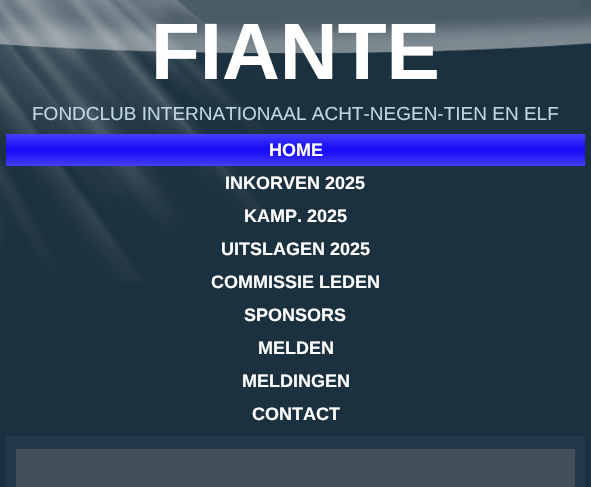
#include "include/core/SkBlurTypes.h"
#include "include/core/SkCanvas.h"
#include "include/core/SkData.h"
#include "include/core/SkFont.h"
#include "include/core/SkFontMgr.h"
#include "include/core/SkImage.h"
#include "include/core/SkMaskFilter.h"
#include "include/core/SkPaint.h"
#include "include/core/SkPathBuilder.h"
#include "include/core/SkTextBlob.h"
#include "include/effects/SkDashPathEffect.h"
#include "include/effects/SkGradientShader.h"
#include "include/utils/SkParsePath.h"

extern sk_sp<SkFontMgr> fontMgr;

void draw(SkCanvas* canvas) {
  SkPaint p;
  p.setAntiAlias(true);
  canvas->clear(SkColorSetRGB(28, 49, 63));
  canvas->drawImageRect(SkImages::DeferredFromEncodedData(SkData::MakeFromFileName("images/1.png")), SkRect::MakeLTRB(0, 0, 264, 283), SkSamplingOptions());
  canvas->drawImageRect(SkImages::DeferredFromEncodedData(SkData::MakeFromFileName("images/2.png")), SkRect::MakeLTRB(0, 0, 591, 54), SkSamplingOptions());
  {
    const SkColor colors[] = {SkColorSetRGB(71, 62, 249), SkColorSetRGB(29, 18, 248), SkColorSetRGB(24, 13, 248), SkColorSetRGB(29, 18, 248), SkColorSetRGB(71, 62, 249)};
    const float stops[] = {0, 0.4f, 0.5f, 0.6f, 1};
    const SkPoint ends[] = {{296, 134}, {296, 166}};
    p.setShader(SkGradientShader::MakeLinear(ends, colors, stops, 5, SkTileMode::kClamp));
    p.setAlpha(255);
  }
  canvas->drawRect(SkRect::MakeLTRB(6, 134, 585, 166), p);
  p.setShader(nullptr);
  p.setColor(SkColorSetRGB(33, 57, 74));
  canvas->drawRect(SkRect::MakeLTRB(6, 436, 585, 487), p);
  p.setColor(SkColorSetRGB(67, 79, 91));
  canvas->drawRect(SkRect::MakeLTRB(16, 449, 575, 487), p);
  SkFont font1(fontMgr->matchFamilyStyle("Liberation Sans", SkFontStyle::Bold()), 80);
  font1.setSubpixel(true);
  p.setColor(SK_ColorWHITE);
  canvas->drawString("FIANTE", 151, 79, font1, p);
  SkFont font2(fontMgr->matchFamilyStyle("Liberation Sans", SkFontStyle::Normal()), 19);
  font2.setSubpixel(true);
  p.setColor(SkColorSetRGB(192, 213, 227));
  canvas->drawString("FONDCLUB INTERNATIONAAL ACHT-NEGEN-TIEN EN ELF", 32, 120, font2, p);
  SkFont font3(fontMgr->matchFamilyStyle("Liberation Sans", SkFontStyle::Bold()), 18);
  font3.setSubpixel(true);
  p.setColor(SK_ColorWHITE);
  canvas->drawString("HOME", 269, 156, font3, p);
  canvas->drawString("INKORVEN 2025", 225, 189, font3, p);
  canvas->drawString("KAMP. 2025", 244, 222, font3, p);
  canvas->drawString("UITSLAGEN 2025", 221, 255, font3, p);
  canvas->drawString("COMMISSIE LEDEN", 211, 288, font3, p);
  canvas->drawString("SPONSORS", 244, 321, font3, p);
  canvas->drawString("MELDEN", 258, 354, font3, p);
  canvas->drawString("MELDINGEN", 242, 387, font3, p);
  canvas->drawString("CONTACT", 252, 420, font3, p);
}
